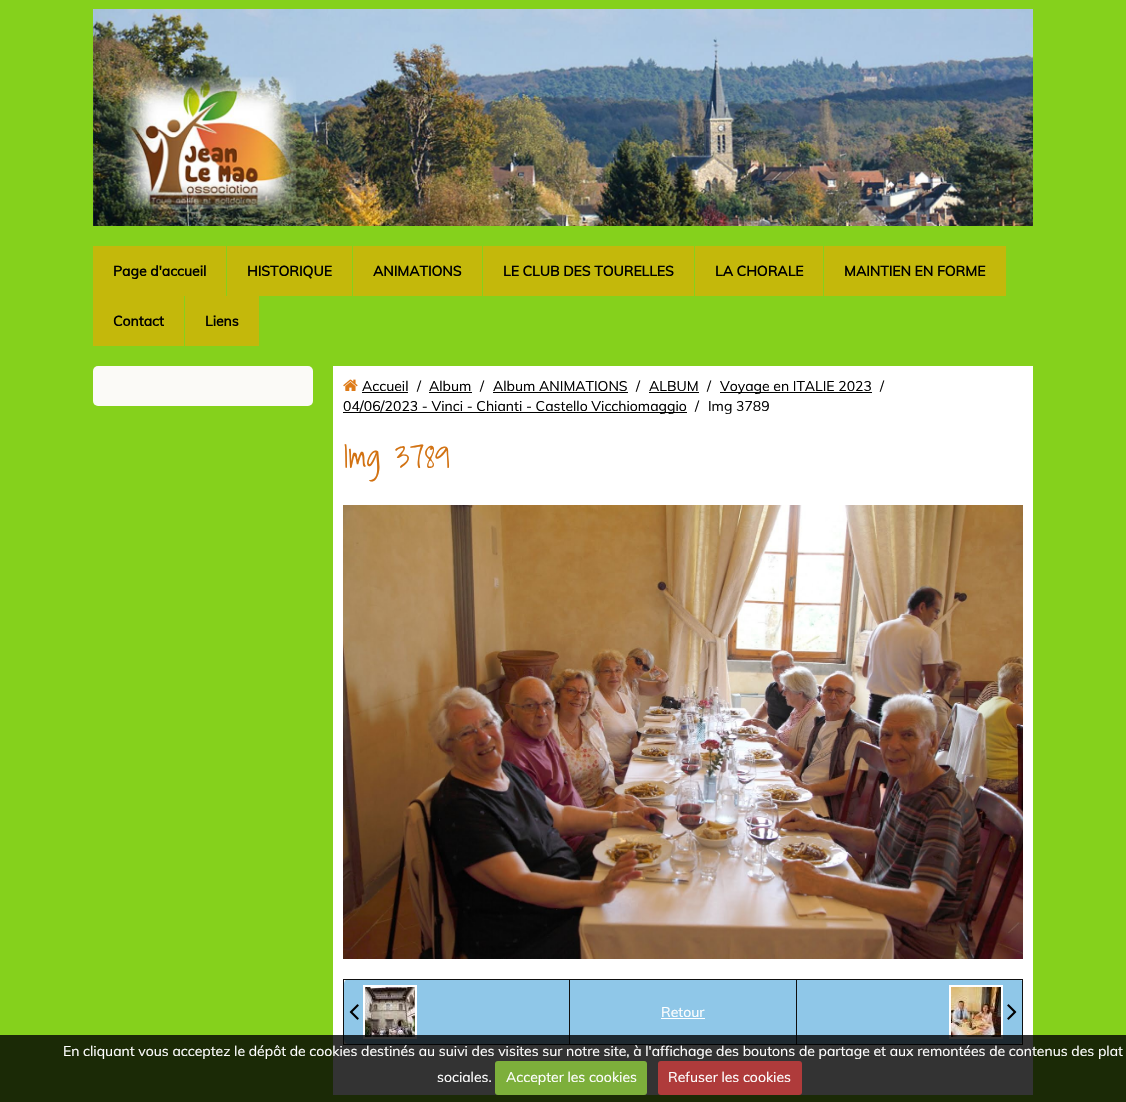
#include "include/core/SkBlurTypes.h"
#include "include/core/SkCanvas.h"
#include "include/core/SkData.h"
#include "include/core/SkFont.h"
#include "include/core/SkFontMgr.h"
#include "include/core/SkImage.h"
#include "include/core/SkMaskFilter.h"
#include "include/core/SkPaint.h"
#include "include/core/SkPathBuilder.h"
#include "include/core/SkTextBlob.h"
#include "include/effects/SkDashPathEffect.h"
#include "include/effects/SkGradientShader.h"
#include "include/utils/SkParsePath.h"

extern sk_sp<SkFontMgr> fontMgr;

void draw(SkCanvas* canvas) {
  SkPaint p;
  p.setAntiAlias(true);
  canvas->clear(SkColorSetRGB(133, 209, 28));
  canvas->drawImageRect(SkImages::DeferredFromEncodedData(SkData::MakeFromFileName("images/1.png")), SkRect::MakeLTRB(93, 9, 1033, 226), SkSamplingOptions());
  p.setColor(SkColorSetRGB(196, 184, 11));
  canvas->drawRect(SkRect::MakeLTRB(93, 246, 226, 296), p);
  canvas->drawRect(SkRect::MakeLTRB(227, 246, 352, 296), p);
  canvas->drawRect(SkRect::MakeLTRB(353, 246, 482, 296), p);
  canvas->drawRect(SkRect::MakeLTRB(483, 246, 694, 296), p);
  canvas->drawRect(SkRect::MakeLTRB(695, 246, 823, 296), p);
  canvas->drawRect(SkRect::MakeLTRB(824, 246, 1006, 296), p);
  canvas->drawRect(SkRect::MakeLTRB(93, 296, 184, 346), p);
  canvas->drawRect(SkRect::MakeLTRB(185, 296, 259, 346), p);
  p.setColor(SkColorSetRGB(251, 250, 247));
  canvas->drawRoundRect(SkRect::MakeLTRB(93, 366, 313, 406), 5, 5, p);
  p.setColor(SK_ColorWHITE);
  canvas->drawRect(SkRect::MakeLTRB(333, 366, 1033, 1095), p);
  canvas->drawImageRect(SkImages::DeferredFromEncodedData(SkData::MakeFromFileName("images/2.png")), SkRect::MakeLTRB(343, 379, 358, 391), SkSamplingOptions());
  p.setColor(SK_ColorBLACK);
  canvas->drawRect(SkRect::MakeLTRB(362, 392, 408, 393), p);
  canvas->drawRect(SkRect::MakeLTRB(429, 392, 472, 393), p);
  canvas->drawRect(SkRect::MakeLTRB(493, 392, 628, 393), p);
  canvas->drawRect(SkRect::MakeLTRB(649, 392, 699, 393), p);
  canvas->drawRect(SkRect::MakeLTRB(720, 392, 872, 393), p);
  canvas->drawRect(SkRect::MakeLTRB(343, 412, 687, 413), p);
  canvas->drawImageRect(SkImages::DeferredFromEncodedData(SkData::MakeFromFileName("images/3.png")), SkRect::MakeLTRB(343, 505, 1023, 959), SkSamplingOptions());
  p.setColor(SkColorSetRGB(143, 199, 232));
  canvas->drawPath(SkPathBuilder().moveTo(349, 979).lineTo(570, 979).lineTo(570, 1044).lineTo(349, 1044).cubicTo(346, 1044, 344, 1042, 344, 1039).lineTo(344, 984).cubicTo(344, 981, 346, 979, 349, 979).close().detach(), p);
  canvas->drawPath(SkPathBuilder().moveTo(796, 979).lineTo(1018, 979).cubicTo(1021, 979, 1023, 981, 1023, 984).lineTo(1023, 1039).cubicTo(1023, 1042, 1021, 1044, 1018, 1044).lineTo(796, 1044).close().detach(), p);
  p.setColor(SkColorSetRGB(15, 15, 15));
  canvas->drawRect(SkRect::MakeLTRB(343, 979, 1023, 980), p);
  canvas->drawRect(SkRect::MakeLTRB(1022, 979, 1023, 1045), p);
  canvas->drawRect(SkRect::MakeLTRB(343, 1044, 1023, 1045), p);
  canvas->drawRect(SkRect::MakeLTRB(343, 979, 344, 1045), p);
  p.setStyle(SkPaint::kStroke_Style);
  p.setStrokeWidth(2);
  p.setColor(SK_ColorWHITE);
  canvas->drawRect(SkRect::MakeLTRB(364, 986, 416, 1038), p);
  canvas->drawImageRect(SkImages::DeferredFromEncodedData(SkData::MakeFromFileName("images/4.png")), SkRect::MakeLTRB(349, 1004, 359, 1020), SkSamplingOptions());
  canvas->drawImageRect(SkImages::DeferredFromEncodedData(SkData::MakeFromFileName("images/5.png")), SkRect::MakeLTRB(365, 987, 415, 1037), SkSamplingOptions());
  p.setStyle(SkPaint::kFill_Style);
  p.setColor(SkColorSetRGB(143, 199, 232));
  canvas->drawRect(SkRect::MakeLTRB(570, 980, 796, 1044), p);
  p.setColor(SkColorSetRGB(15, 15, 15));
  canvas->drawRect(SkRect::MakeLTRB(569, 979, 570, 1045), p);
  p.setColor(SK_ColorWHITE);
  canvas->drawRect(SkRect::MakeLTRB(661, 1018, 705, 1019), p);
  p.setColor(SkColorSetRGB(15, 15, 15));
  canvas->drawRect(SkRect::MakeLTRB(796, 979, 797, 1045), p);
  p.setStyle(SkPaint::kStroke_Style);
  p.setColor(SK_ColorWHITE);
  canvas->drawRect(SkRect::MakeLTRB(950, 986, 1002, 1038), p);
  canvas->drawImageRect(SkImages::DeferredFromEncodedData(SkData::MakeFromFileName("images/6.png")), SkRect::MakeLTRB(951, 987, 1001, 1037), SkSamplingOptions());
  canvas->drawImageRect(SkImages::DeferredFromEncodedData(SkData::MakeFromFileName("images/7.png")), SkRect::MakeLTRB(1007, 1004, 1017, 1020), SkSamplingOptions());
  p.setStyle(SkPaint::kFill_Style);
  p.setColor(SkColorSetARGB(204, 0, 0, 0));
  canvas->drawRect(SkRect::MakeLTRB(0, 1035, 1126, 1102), p);
  p.setColor(SkColorSetRGB(125, 175, 59));
  canvas->drawRoundRect(SkRect::MakeLTRB(495, 1061, 647, 1095), 3, 3, p);
  p.setColor(SkColorSetRGB(175, 59, 59));
  canvas->drawRoundRect(SkRect::MakeLTRB(658, 1061, 802, 1095), 3, 3, p);
  SkFont font1(fontMgr->matchFamilyStyle("Muli", SkFontStyle::Bold()), 14);
  font1.setSubpixel(true);
  p.setColor(SK_ColorBLACK);
  canvas->drawString("Page d'accueil", 113, 276, font1, p);
  canvas->drawString("HISTORIQUE", 247, 276, font1, p);
  canvas->drawString("ANIMATIONS", 373, 276, font1, p);
  canvas->drawString("LE CLUB DES TOURELLES", 503, 276, font1, p);
  canvas->drawString("LA CHORALE", 715, 276, font1, p);
  canvas->drawString("MAINTIEN EN FORME", 844, 276, font1, p);
  canvas->drawString("Contact", 113, 326, font1, p);
  canvas->drawString("Liens", 205, 326, font1, p);
  SkFont font2(fontMgr->matchFamilyStyle("Muli", SkFontStyle::Normal()), 14);
  font2.setSubpixel(true);
  canvas->drawString("Accueil", 362, 391, font2, p);
  p.setColor(SkColorSetRGB(7, 7, 7));
  canvas->drawString("/", 417, 391, font2, p);
  p.setColor(SK_ColorBLACK);
  canvas->drawString("Album", 429, 391, font2, p);
  p.setColor(SkColorSetRGB(7, 7, 7));
  canvas->drawString("/", 480, 391, font2, p);
  p.setColor(SK_ColorBLACK);
  canvas->drawString("Album ANIMATIONS", 493, 391, font2, p);
  p.setColor(SkColorSetRGB(7, 7, 7));
  canvas->drawString("/", 636, 391, font2, p);
  p.setColor(SK_ColorBLACK);
  canvas->drawString("ALBUM", 649, 391, font2, p);
  p.setColor(SkColorSetRGB(7, 7, 7));
  canvas->drawString("/", 707, 391, font2, p);
  p.setColor(SK_ColorBLACK);
  canvas->drawString("Voyage en ITALIE 2023", 720, 391, font2, p);
  p.setColor(SkColorSetRGB(7, 7, 7));
  canvas->drawString("/", 880, 391, font2, p);
  p.setColor(SK_ColorBLACK);
  canvas->drawString("04/06/2023 - Vinci - Chianti - Castello Vicchiomaggio", 343, 411, font2, p);
  p.setColor(SkColorSetRGB(7, 7, 7));
  canvas->drawString("/", 695, 411, font2, p);
  canvas->drawString("Img 3789", 708, 411, font2, p);
  SkFont font3(fontMgr->matchFamilyStyle("Shadows Into Light", SkFontStyle::Normal()), 32);
  font3.setSubpixel(true);
  p.setColor(SkColorSetRGB(210, 114, 18));
  canvas->drawString("Img 3789", 343, 468, font3, p);
  p.setColor(SK_ColorWHITE);
  canvas->drawString("Retour", 661, 1017, font2, p);
  canvas->drawString("En cliquant vous acceptez le dépôt de cookies destinés au suivi des visites sur notre site, à l'affichage des boutons de partage et aux remontées de contenus des plat", 63, 1056, font2, p);
  canvas->drawString("sociales.", 437, 1082, font2, p);
  canvas->drawString("Accepter les cookies", 506, 1082, font2, p);
  canvas->drawString("Refuser les cookies", 668, 1082, font2, p);
}
